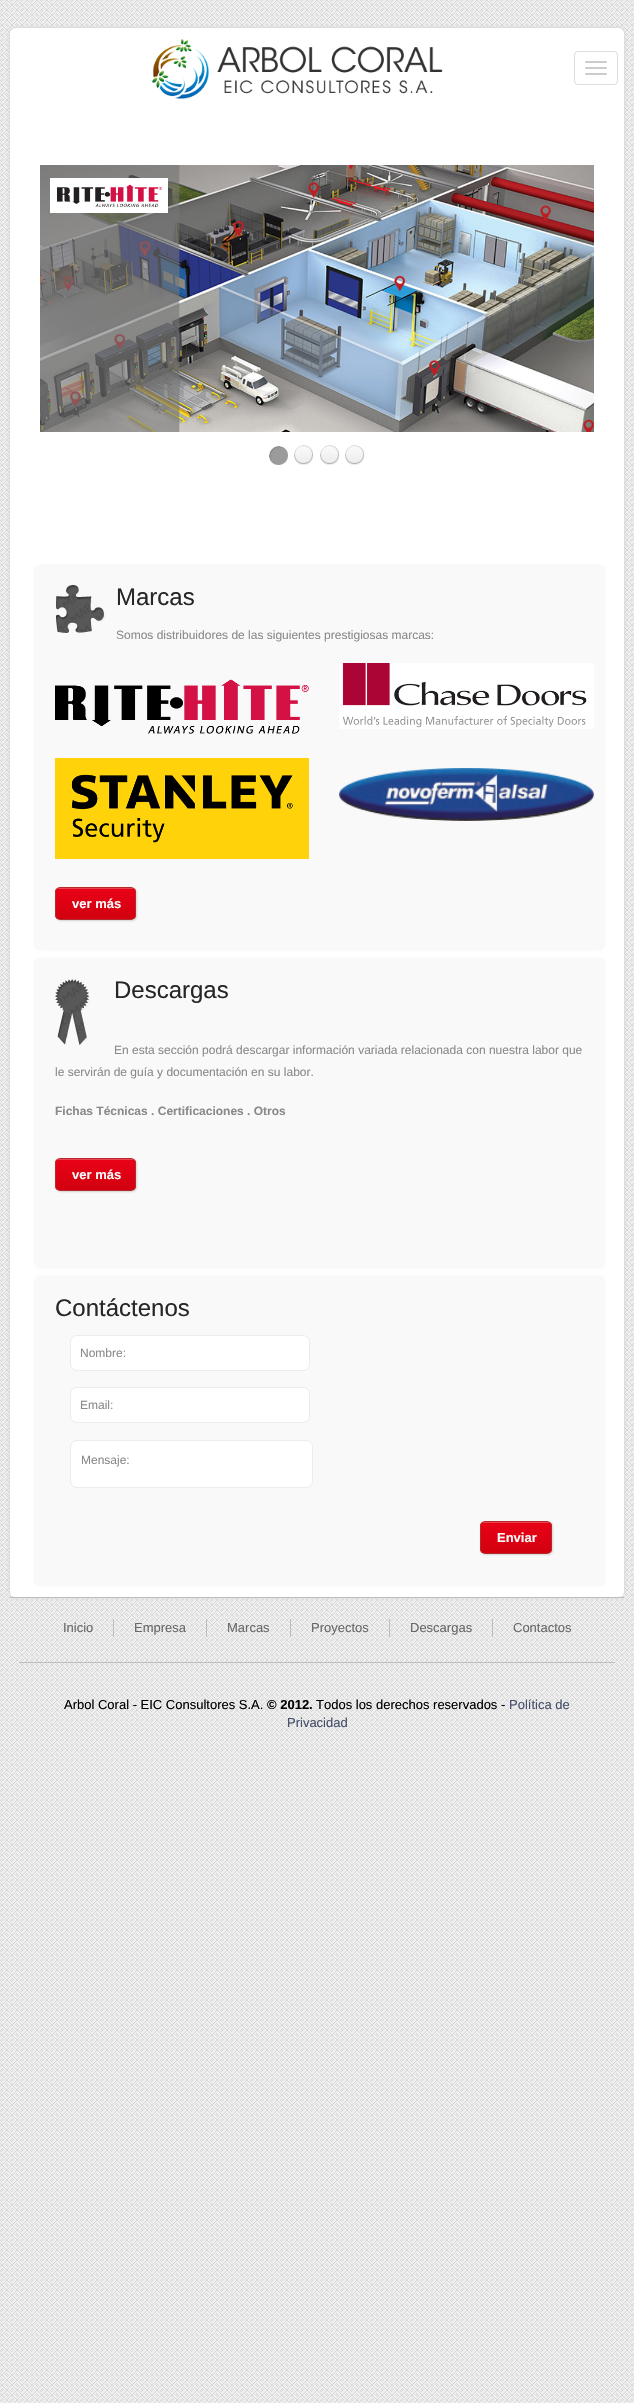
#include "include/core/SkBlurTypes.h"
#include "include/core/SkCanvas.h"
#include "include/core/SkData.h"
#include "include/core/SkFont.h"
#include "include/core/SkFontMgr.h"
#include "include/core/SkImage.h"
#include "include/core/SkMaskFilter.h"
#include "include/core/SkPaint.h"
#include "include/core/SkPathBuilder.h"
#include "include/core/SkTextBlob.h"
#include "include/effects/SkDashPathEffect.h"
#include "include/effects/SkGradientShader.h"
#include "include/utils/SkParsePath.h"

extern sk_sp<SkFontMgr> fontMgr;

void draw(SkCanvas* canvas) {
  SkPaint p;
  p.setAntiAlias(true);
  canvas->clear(SK_ColorWHITE);
  canvas->drawImageRect(SkImages::DeferredFromEncodedData(SkData::MakeFromFileName("images/1.png")), SkRect::MakeLTRB(0, 0, 634, 2403), SkSamplingOptions());
  p.setColor(SkColorSetRGB(199, 199, 199));
  p.setMaskFilter(SkMaskFilter::MakeBlur(kNormal_SkBlurStyle, 1.5f));
  canvas->drawRoundRect(SkRect::MakeLTRB(10, 28, 624, 1597), 5, 5, p);
  p.setMaskFilter(nullptr);
  p.setColor(SK_ColorWHITE);
  canvas->drawRoundRect(SkRect::MakeLTRB(10.5f, 28.5f, 623.5f, 1596.5f), 4.5f, 4.5f, p);
  p.setStyle(SkPaint::kStroke_Style);
  p.setStrokeWidth(1);
  canvas->drawRoundRect(SkRect::MakeLTRB(10.5f, 28.5f, 623.5f, 1596.5f), 4.5f, 4.5f, p);
  canvas->drawImageRect(SkImages::DeferredFromEncodedData(SkData::MakeFromFileName("images/2.png")), SkRect::MakeLTRB(152, 39, 443, 99), SkSamplingOptions());
  p.setColor(SkColorSetRGB(221, 221, 221));
  canvas->drawRoundRect(SkRect::MakeLTRB(574.5f, 51.5f, 617.5f, 84.5f), 3.5f, 3.5f, p);
  p.setStyle(SkPaint::kFill_Style);
  p.setColor(SkColorSetRGB(204, 204, 204));
  canvas->drawRoundRect(SkRect::MakeLTRB(585, 61, 607, 63), 1, 1, p);
  canvas->drawRoundRect(SkRect::MakeLTRB(585, 67, 607, 69), 1, 1, p);
  canvas->drawRoundRect(SkRect::MakeLTRB(585, 73, 607, 75), 1, 1, p);
  canvas->drawImageRect(SkImages::DeferredFromEncodedData(SkData::MakeFromFileName("images/3.png")), SkRect::MakeLTRB(40, 165, 594, 432), SkSamplingOptions());
  canvas->drawImageRect(SkImages::DeferredFromEncodedData(SkData::MakeFromFileName("images/4.png")), SkRect::MakeLTRB(269, 446, 288, 465), SkSamplingOptions());
  canvas->drawImageRect(SkImages::DeferredFromEncodedData(SkData::MakeFromFileName("images/5.png")), SkRect::MakeLTRB(294, 445, 314, 465), SkSamplingOptions());
  canvas->drawImageRect(SkImages::DeferredFromEncodedData(SkData::MakeFromFileName("images/6.png")), SkRect::MakeLTRB(320, 445, 340, 465), SkSamplingOptions());
  canvas->drawImageRect(SkImages::DeferredFromEncodedData(SkData::MakeFromFileName("images/5.png")), SkRect::MakeLTRB(345, 445, 365, 465), SkSamplingOptions());
  p.setColor(SK_ColorWHITE);
  canvas->drawRect(SkRect::MakeLTRB(11, 1595, 623, 1596), p);
  p.setColor(SkColorSetRGB(234, 234, 234));
  p.setMaskFilter(SkMaskFilter::MakeBlur(kNormal_SkBlurStyle, 1.5f));
  canvas->drawRoundRect(SkRect::MakeLTRB(35, 566, 604, 949), 6, 6, p);
  p.setMaskFilter(nullptr);
  p.setColor(SkColorSetRGB(249, 249, 249));
  canvas->drawRoundRect(SkRect::MakeLTRB(35, 566, 604, 949), 6, 6, p);
  canvas->drawImageRect(SkImages::DeferredFromEncodedData(SkData::MakeFromFileName("images/7.png")), SkRect::MakeLTRB(56, 585, 105, 634), SkSamplingOptions());
  canvas->drawImageRect(SkImages::DeferredFromEncodedData(SkData::MakeFromFileName("images/8.png")), SkRect::MakeLTRB(55, 679, 309, 734), SkSamplingOptions());
  canvas->drawImageRect(SkImages::DeferredFromEncodedData(SkData::MakeFromFileName("images/9.png")), SkRect::MakeLTRB(339, 663, 594, 729), SkSamplingOptions());
  canvas->drawImageRect(SkImages::DeferredFromEncodedData(SkData::MakeFromFileName("images/10.png")), SkRect::MakeLTRB(55, 758, 309, 859), SkSamplingOptions());
  canvas->drawImageRect(SkImages::DeferredFromEncodedData(SkData::MakeFromFileName("images/11.png")), SkRect::MakeLTRB(339, 768, 594, 821), SkSamplingOptions());
  p.setColor(SkColorSetRGB(211, 211, 211));
  p.setMaskFilter(SkMaskFilter::MakeBlur(kNormal_SkBlurStyle, 1));
  canvas->drawRoundRect(SkRect::MakeLTRB(56, 888, 137, 921), 5, 5, p);
  p.setMaskFilter(nullptr);
  canvas->drawImageRect(SkImages::DeferredFromEncodedData(SkData::MakeFromFileName("images/12.png")), SkRect::MakeLTRB(55, 888, 136, 919), SkSamplingOptions());
  p.setStyle(SkPaint::kStroke_Style);
  p.setColor(SkColorSetRGB(181, 43, 43));
  canvas->drawRoundRect(SkRect::MakeLTRB(55.5f, 887.5f, 135.5f, 919.5f), 4.5f, 4.5f, p);
  p.setStyle(SkPaint::kFill_Style);
  p.setColor(SkColorSetRGB(234, 234, 234));
  p.setMaskFilter(SkMaskFilter::MakeBlur(kNormal_SkBlurStyle, 1.5f));
  canvas->drawRoundRect(SkRect::MakeLTRB(35, 959, 604, 1267), 6, 6, p);
  p.setMaskFilter(nullptr);
  p.setColor(SkColorSetRGB(249, 249, 249));
  canvas->drawRoundRect(SkRect::MakeLTRB(35, 959, 604, 1267), 6, 6, p);
  canvas->drawImageRect(SkImages::DeferredFromEncodedData(SkData::MakeFromFileName("images/13.png")), SkRect::MakeLTRB(55, 979, 90, 1045), SkSamplingOptions());
  p.setColor(SkColorSetRGB(211, 211, 211));
  p.setMaskFilter(SkMaskFilter::MakeBlur(kNormal_SkBlurStyle, 1));
  canvas->drawRoundRect(SkRect::MakeLTRB(56, 1159, 137, 1192), 5, 5, p);
  p.setMaskFilter(nullptr);
  canvas->drawImageRect(SkImages::DeferredFromEncodedData(SkData::MakeFromFileName("images/12.png")), SkRect::MakeLTRB(55, 1159, 136, 1190), SkSamplingOptions());
  p.setStyle(SkPaint::kStroke_Style);
  p.setColor(SkColorSetRGB(181, 43, 43));
  canvas->drawRoundRect(SkRect::MakeLTRB(55.5f, 1158.5f, 135.5f, 1190.5f), 4.5f, 4.5f, p);
  p.setStyle(SkPaint::kFill_Style);
  p.setColor(SkColorSetRGB(234, 234, 234));
  p.setMaskFilter(SkMaskFilter::MakeBlur(kNormal_SkBlurStyle, 1.5f));
  canvas->drawRoundRect(SkRect::MakeLTRB(35, 1277, 604, 1585), 6, 6, p);
  p.setMaskFilter(nullptr);
  p.setColor(SkColorSetRGB(249, 249, 249));
  canvas->drawRoundRect(SkRect::MakeLTRB(35, 1277, 604, 1585), 6, 6, p);
  p.setColor(SK_ColorWHITE);
  canvas->drawRoundRect(SkRect::MakeLTRB(70.5f, 1335.5f, 309.5f, 1370.5f), 6.5f, 6.5f, p);
  p.setStyle(SkPaint::kStroke_Style);
  p.setColor(SkColorSetRGB(236, 236, 236));
  canvas->drawRoundRect(SkRect::MakeLTRB(70.5f, 1335.5f, 309.5f, 1370.5f), 6.5f, 6.5f, p);
  p.setStyle(SkPaint::kFill_Style);
  p.setColor(SK_ColorWHITE);
  canvas->drawRoundRect(SkRect::MakeLTRB(70.5f, 1387.5f, 309.5f, 1422.5f), 6.5f, 6.5f, p);
  p.setStyle(SkPaint::kStroke_Style);
  p.setColor(SkColorSetRGB(236, 236, 236));
  canvas->drawRoundRect(SkRect::MakeLTRB(70.5f, 1387.5f, 309.5f, 1422.5f), 6.5f, 6.5f, p);
  p.setStyle(SkPaint::kFill_Style);
  p.setColor(SK_ColorWHITE);
  canvas->drawRoundRect(SkRect::MakeLTRB(70.5f, 1440.5f, 312.5f, 1487.5f), 6.5f, 6.5f, p);
  p.setStyle(SkPaint::kStroke_Style);
  p.setColor(SkColorSetRGB(236, 236, 236));
  canvas->drawRoundRect(SkRect::MakeLTRB(70.5f, 1440.5f, 312.5f, 1487.5f), 6.5f, 6.5f, p);
  p.setStyle(SkPaint::kFill_Style);
  p.setColor(SkColorSetRGB(211, 211, 211));
  p.setMaskFilter(SkMaskFilter::MakeBlur(kNormal_SkBlurStyle, 1));
  canvas->drawRoundRect(SkRect::MakeLTRB(481, 1522, 553, 1555), 5, 5, p);
  p.setMaskFilter(nullptr);
  canvas->drawImageRect(SkImages::DeferredFromEncodedData(SkData::MakeFromFileName("images/14.png")), SkRect::MakeLTRB(480, 1522, 552, 1553), SkSamplingOptions());
  p.setStyle(SkPaint::kStroke_Style);
  p.setColor(SkColorSetRGB(181, 43, 43));
  canvas->drawRoundRect(SkRect::MakeLTRB(480.5f, 1521.5f, 551.5f, 1553.5f), 4.5f, 4.5f, p);
  p.setStyle(SkPaint::kFill_Style);
  p.setColor(SkColorSetRGB(189, 189, 189));
  canvas->drawRect(SkRect::MakeLTRB(10, 1597, 624, 1598), p);
  canvas->drawRect(SkRect::MakeLTRB(113, 1619, 114, 1637), p);
  canvas->drawRect(SkRect::MakeLTRB(206, 1619, 207, 1637), p);
  canvas->drawRect(SkRect::MakeLTRB(290, 1619, 291, 1637), p);
  canvas->drawRect(SkRect::MakeLTRB(389, 1619, 390, 1637), p);
  canvas->drawRect(SkRect::MakeLTRB(492, 1619, 493, 1637), p);
  canvas->drawRect(SkRect::MakeLTRB(19, 1662, 615, 1663), p);
  SkFont font1(fontMgr->matchFamilyStyle("Liberation Sans", SkFontStyle::Normal()), 24);
  font1.setSubpixel(true);
  p.setColor(SkColorSetRGB(39, 39, 39));
  canvas->drawString("Marcas", 116, 605, font1, p);
  SkFont font2(fontMgr->matchFamilyStyle("Liberation Sans", SkFontStyle::Normal()), 12);
  font2.setSubpixel(true);
  p.setColor(SkColorSetRGB(138, 138, 138));
  canvas->drawString("Somos distribuidores de las siguientes prestigiosas marcas:", 116, 639, font2, p);
  SkFont font3(fontMgr->matchFamilyStyle("Liberation Sans", SkFontStyle::Bold()), 13);
  font3.setSubpixel(true);
  p.setColor(SkColorSetRGB(251, 251, 251));
  canvas->drawString("ver más", 72, 908, font3, p);
  p.setColor(SkColorSetRGB(39, 39, 39));
  canvas->drawString("Descargas", 114, 998, font1, p);
  p.setColor(SkColorSetRGB(138, 138, 138));
  canvas->drawString("En esta sección podrá descargar información variada relacionada con nuestra labor que", 114, 1054, font2, p);
  canvas->drawString("le servirán de guía y documentación en su labor.", 55, 1076, font2, p);
  SkFont font4(fontMgr->matchFamilyStyle("Liberation Sans", SkFontStyle::Bold()), 12);
  font4.setSubpixel(true);
  canvas->drawString("Fichas Técnicas . Certificaciones . Otros", 55, 1115, font4, p);
  p.setColor(SkColorSetRGB(251, 251, 251));
  canvas->drawString("ver más", 72, 1179, font3, p);
  p.setColor(SkColorSetRGB(39, 39, 39));
  canvas->drawString("Contáctenos", 55, 1316, font1, p);
  p.setColor(SkColorSetRGB(138, 138, 138));
  canvas->drawString("Nombre:", 80, 1357, font2, p);
  canvas->drawString("Email:", 80, 1409, font2, p);
  canvas->drawString("Mensaje:", 81, 1464, font2, p);
  p.setColor(SkColorSetRGB(251, 251, 251));
  canvas->drawString("Enviar", 497, 1542, font3, p);
  SkFont font5(fontMgr->matchFamilyStyle("Liberation Sans", SkFontStyle::Normal()), 13);
  font5.setSubpixel(true);
  p.setColor(SkColorSetRGB(104, 104, 104));
  canvas->drawString("Inicio", 63, 1632, font5, p);
  canvas->drawString("Empresa", 134, 1632, font5, p);
  canvas->drawString("Marcas", 227, 1632, font5, p);
  canvas->drawString("Proyectos", 311, 1632, font5, p);
  canvas->drawString("Descargas", 410, 1632, font5, p);
  canvas->drawString("Contactos", 513, 1632, font5, p);
  p.setColor(SK_ColorBLACK);
  canvas->drawString("Arbol Coral - EIC Consultores S.A.", 64, 1709, font5, p);
  canvas->drawString("© 2012.", 267, 1709, font3, p);
  canvas->drawString("Todos los derechos reservados -", 316, 1709, font5, p);
  p.setColor(SkColorSetRGB(68, 78, 103));
  canvas->drawString("Política de", 509, 1709, font5, p);
  canvas->drawString("Privacidad", 287, 1727, font5, p);
}
